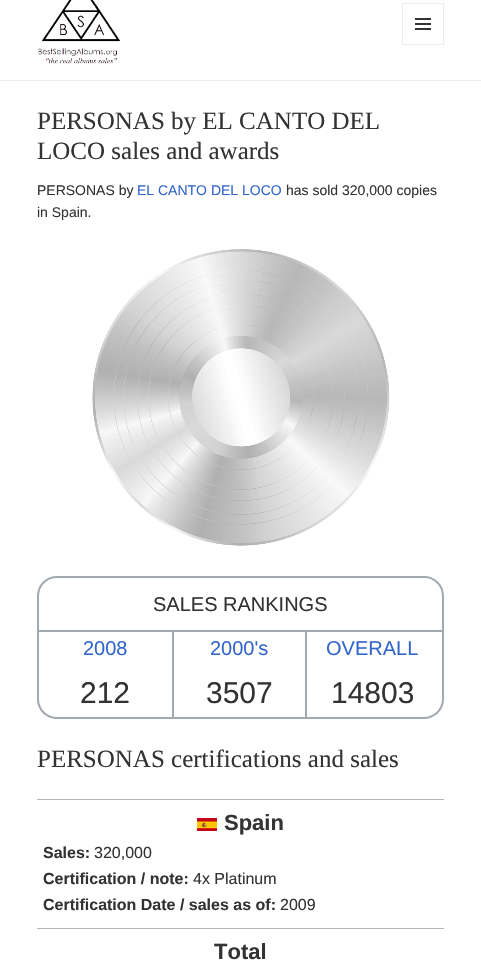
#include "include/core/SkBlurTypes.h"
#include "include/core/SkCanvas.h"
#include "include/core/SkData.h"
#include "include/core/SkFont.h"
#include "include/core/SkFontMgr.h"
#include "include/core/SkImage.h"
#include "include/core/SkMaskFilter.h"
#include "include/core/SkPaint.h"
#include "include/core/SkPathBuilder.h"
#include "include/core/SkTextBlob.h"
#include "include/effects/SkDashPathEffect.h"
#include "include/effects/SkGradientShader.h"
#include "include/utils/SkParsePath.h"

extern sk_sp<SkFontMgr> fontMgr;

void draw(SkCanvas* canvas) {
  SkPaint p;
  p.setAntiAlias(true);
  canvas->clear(SK_ColorWHITE);
  p.setColor(SkColorSetRGB(235, 235, 235));
  canvas->drawRect(SkRect::MakeLTRB(0, 80, 481, 81), p);
  canvas->drawImageRect(SkImages::DeferredFromEncodedData(SkData::MakeFromFileName("images/1.png")), SkRect::MakeLTRB(38, 0, 120, 64), SkSamplingOptions());
  p.setStyle(SkPaint::kStroke_Style);
  p.setStrokeWidth(1);
  canvas->drawRect(SkRect::MakeLTRB(402.5f, 3.5f, 443.5f, 44.5f), p);
  canvas->drawImageRect(SkImages::DeferredFromEncodedData(SkData::MakeFromFileName("images/2.png")), SkRect::MakeLTRB(415, 18, 431, 30), SkSamplingOptions());
  canvas->drawImageRect(SkImages::DeferredFromEncodedData(SkData::MakeFromFileName("images/3.png")), SkRect::MakeLTRB(92, 249, 390, 546), SkSamplingOptions());
  p.setStrokeWidth(2);
  p.setColor(SkColorSetRGB(162, 169, 177));
  canvas->drawPath(SkPathBuilder().moveTo(57, 577).lineTo(424, 577).cubicTo(434.5f, 577, 443, 585.5f, 443, 596).lineTo(443, 631).lineTo(38, 631).lineTo(38, 596).cubicTo(38, 585.5f, 46.5f, 577, 57, 577).close().detach(), p);
  p.setStyle(SkPaint::kFill_Style);
  canvas->drawPath(SkPathBuilder(SkPathFillType::kEvenOdd).moveTo(37, 632).lineTo(444, 632).lineTo(444, 699).cubicTo(444, 710, 435, 719, 424, 719).lineTo(57, 719).cubicTo(46, 719, 37, 710, 37, 699).close().moveTo(39, 632).lineTo(442, 632).lineTo(442, 699).cubicTo(442, 709, 434, 717, 424, 717).lineTo(57, 717).cubicTo(47, 717, 39, 709, 39, 699).close().detach(), p);
  canvas->drawRect(SkRect::MakeLTRB(172, 632, 174, 717), p);
  canvas->drawRect(SkRect::MakeLTRB(305, 632, 307, 717), p);
  p.setColor(SkColorSetRGB(181, 182, 183));
  canvas->drawRect(SkRect::MakeLTRB(37, 799, 444, 800), p);
  canvas->drawImageRect(SkImages::DeferredFromEncodedData(SkData::MakeFromFileName("images/4.png")), SkRect::MakeLTRB(197, 818, 217, 831), SkSamplingOptions());
  canvas->drawRect(SkRect::MakeLTRB(37, 928, 444, 929), p);
  SkFont font1(fontMgr->matchFamilyStyle("Liberation Serif", SkFontStyle::Normal()), 25);
  font1.setSubpixel(true);
  p.setColor(SkColorSetRGB(51, 51, 51));
  canvas->drawString("PERSONAS by EL CANTO DEL", 37, 129, font1, p);
  canvas->drawString("LOCO sales and awards", 37, 159, font1, p);
  SkFont font2(fontMgr->matchFamilyStyle("Liberation Sans", SkFontStyle::Normal()), 14);
  font2.setSubpixel(true);
  canvas->drawString("PERSONAS by", 37, 195, font2, p);
  p.setColor(SkColorSetRGB(51, 102, 204));
  canvas->drawString("EL CANTO DEL LOCO", 137, 195, font2, p);
  p.setColor(SkColorSetRGB(51, 51, 51));
  canvas->drawString("has sold 320,000 copies", 286, 195, font2, p);
  canvas->drawString("in Spain.", 37, 217, font2, p);
  SkFont font3(fontMgr->matchFamilyStyle("Liberation Sans", SkFontStyle::Normal()), 20);
  font3.setSubpixel(true);
  canvas->drawString("SALES RANKINGS", 153, 611, font3, p);
  p.setColor(SkColorSetRGB(51, 102, 204));
  canvas->drawString("2008", 83, 655, font3, p);
  SkFont font4(fontMgr->matchFamilyStyle("Liberation Sans", SkFontStyle::Normal()), 30);
  font4.setSubpixel(true);
  p.setColor(SkColorSetRGB(51, 51, 51));
  canvas->drawString("212", 80, 703, font4, p);
  p.setColor(SkColorSetRGB(51, 102, 204));
  canvas->drawString("2000's", 210, 655, font3, p);
  p.setColor(SkColorSetRGB(51, 51, 51));
  canvas->drawString("3507", 206, 703, font4, p);
  p.setColor(SkColorSetRGB(51, 102, 204));
  canvas->drawString("OVERALL", 326, 655, font3, p);
  p.setColor(SkColorSetRGB(51, 51, 51));
  canvas->drawString("14803", 331, 703, font4, p);
  canvas->drawString("PERSONAS certifications and sales", 37, 767, font1, p);
  SkFont font5(fontMgr->matchFamilyStyle("Liberation Sans", SkFontStyle::Bold()), 22);
  font5.setSubpixel(true);
  canvas->drawString("Spain", 224, 830, font5, p);
  SkFont font6(fontMgr->matchFamilyStyle("Liberation Sans", SkFontStyle::Bold()), 16);
  font6.setSubpixel(true);
  canvas->drawString("Sales:", 43, 858, font6, p);
  SkFont font7(fontMgr->matchFamilyStyle("Liberation Sans", SkFontStyle::Normal()), 16);
  font7.setSubpixel(true);
  canvas->drawString("320,000", 94, 858, font7, p);
  canvas->drawString("Certification / note:", 43, 884, font6, p);
  canvas->drawString("4x Platinum", 193, 884, font7, p);
  canvas->drawString("Certification Date / sales as of:", 43, 910, font6, p);
  canvas->drawString("2009", 280, 910, font7, p);
  canvas->drawString("Total", 214, 959, font5, p);
}
